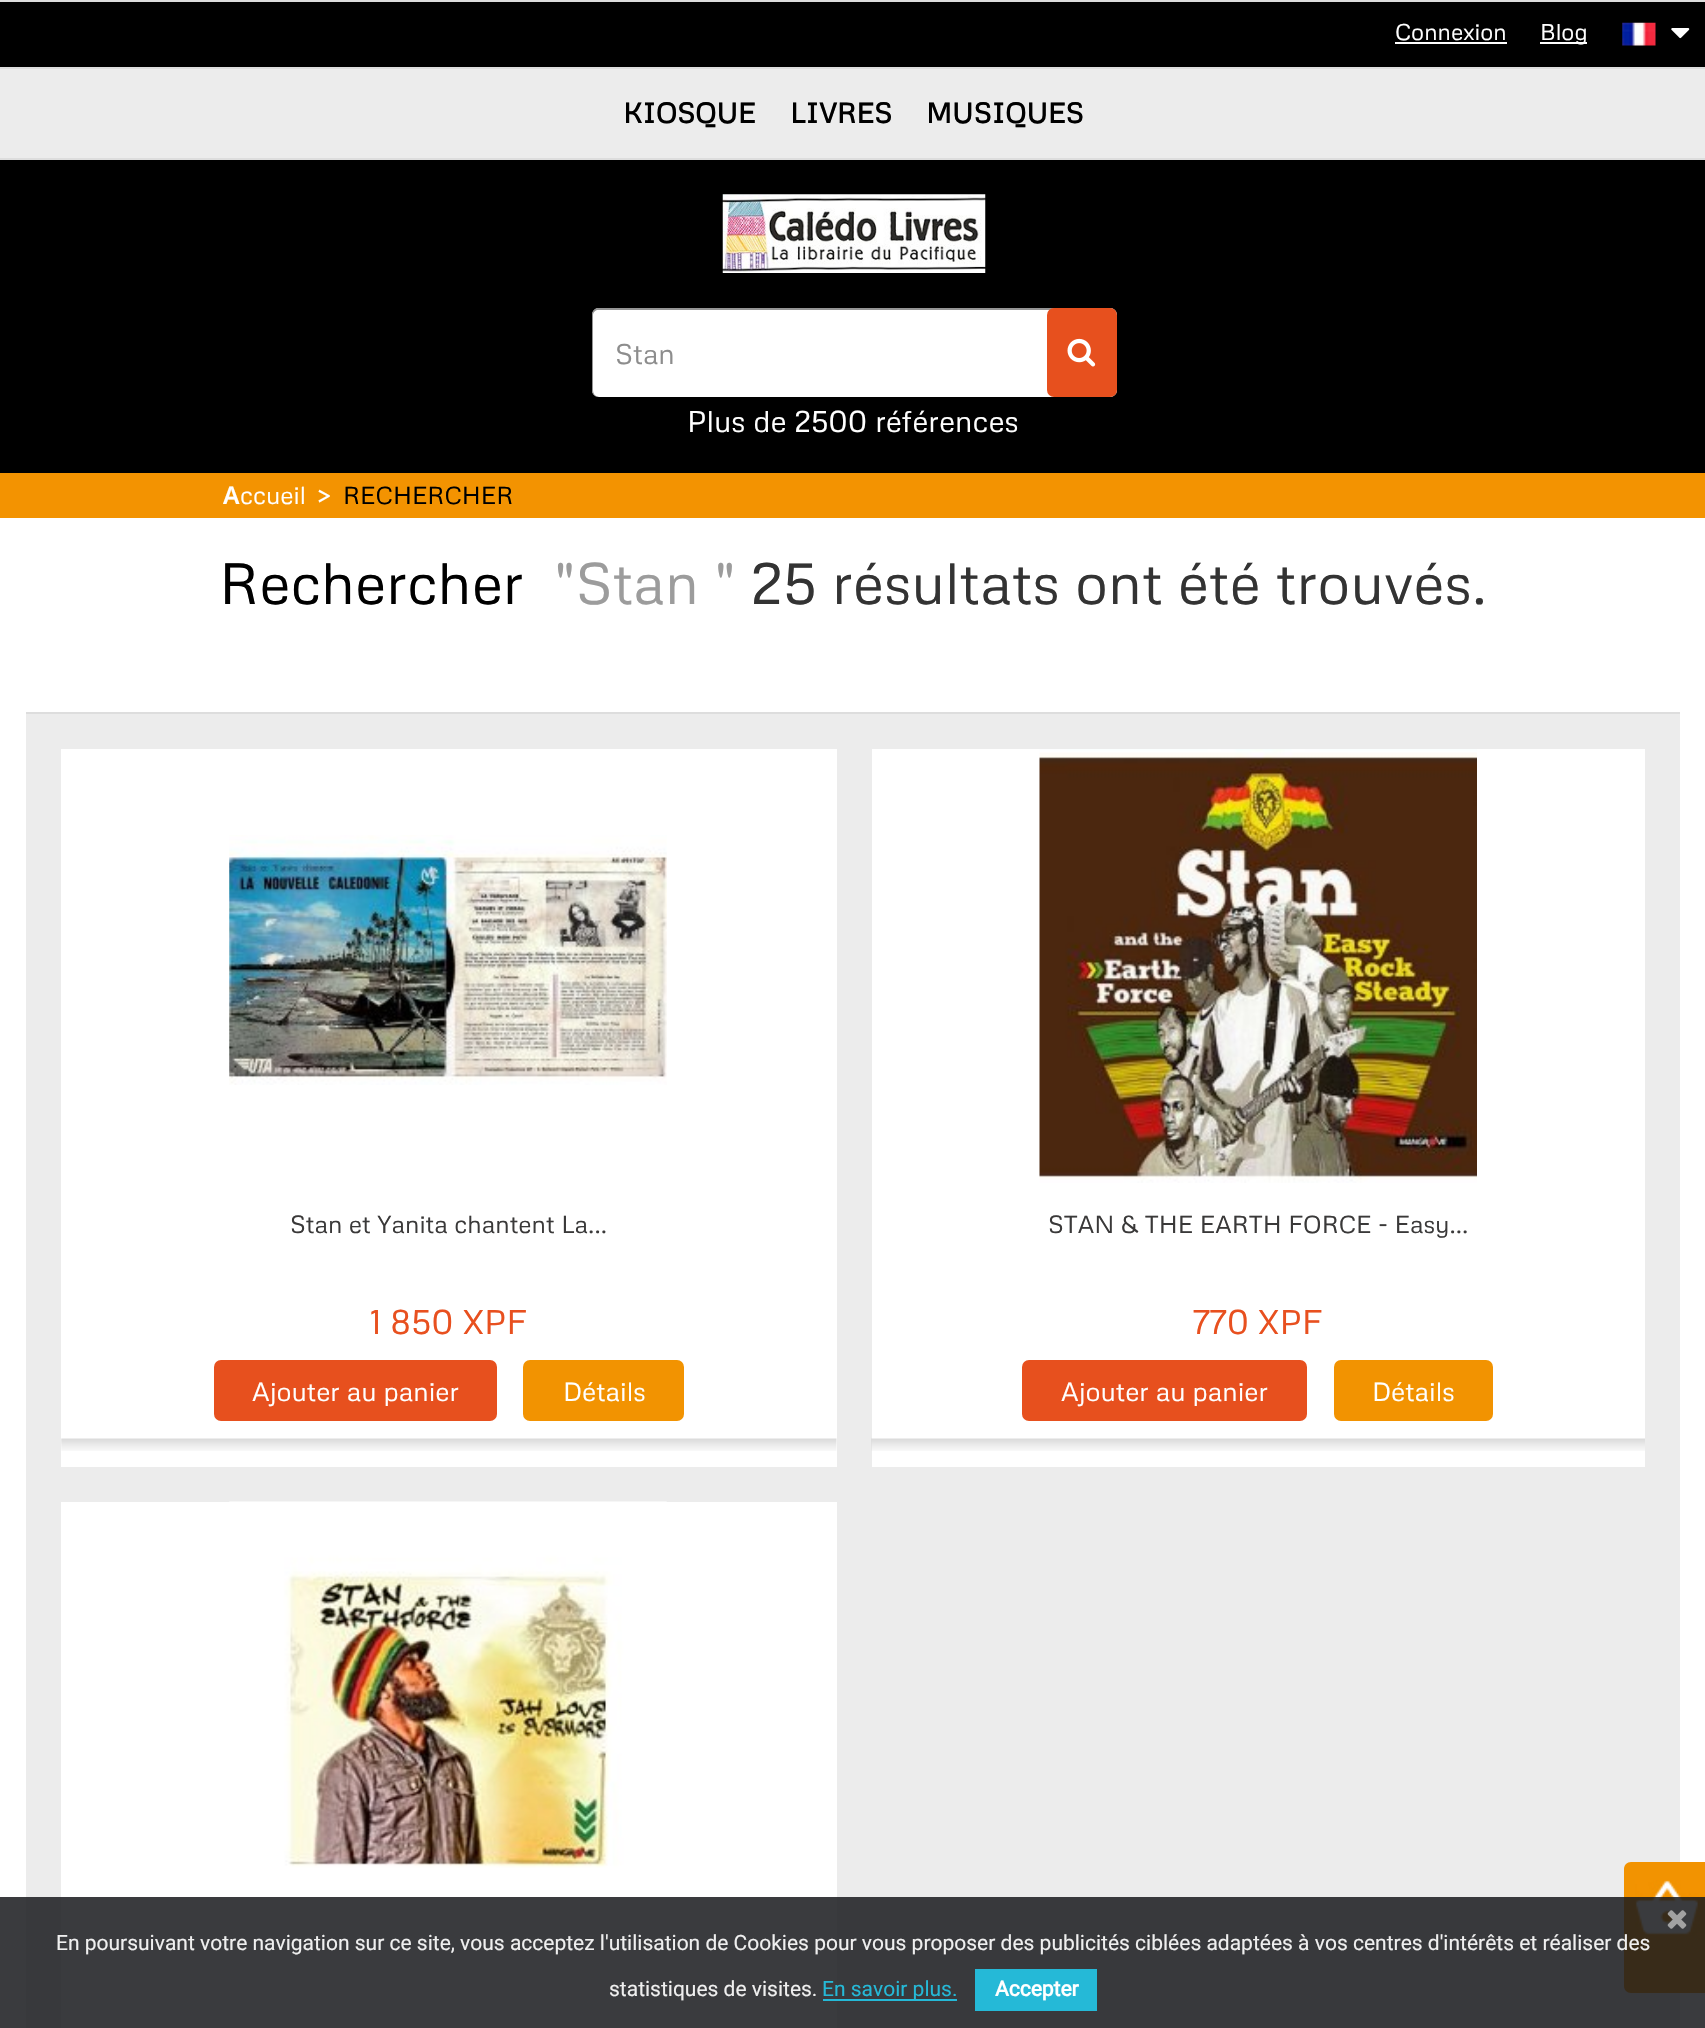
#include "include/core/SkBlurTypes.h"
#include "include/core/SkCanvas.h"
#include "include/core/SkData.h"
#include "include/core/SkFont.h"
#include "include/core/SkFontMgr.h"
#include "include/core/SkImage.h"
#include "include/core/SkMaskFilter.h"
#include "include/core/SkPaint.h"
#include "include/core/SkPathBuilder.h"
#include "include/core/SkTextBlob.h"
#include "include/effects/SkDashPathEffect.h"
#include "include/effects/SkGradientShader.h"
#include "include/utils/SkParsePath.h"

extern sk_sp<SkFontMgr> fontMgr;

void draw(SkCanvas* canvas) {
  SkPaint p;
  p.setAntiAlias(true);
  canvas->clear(SK_ColorWHITE);
  p.setColor(SkColorSetRGB(221, 221, 221));
  canvas->drawRect(SkRect::MakeLTRB(0, 0, 1705, 2), p);
  p.setColor(SkColorSetRGB(236, 236, 236));
  canvas->drawRect(SkRect::MakeLTRB(26, 714, 1680, 2028), p);
  p.setColor(SkColorSetRGB(242, 147, 1));
  canvas->drawPath(SkPathBuilder().moveTo(1631, 1862).lineTo(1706, 1862).lineTo(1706, 1993).lineTo(1631, 1993).cubicTo(1627, 1993, 1624, 1990, 1624, 1986).lineTo(1624, 1869).cubicTo(1624, 1865, 1627, 1862, 1631, 1862).close().detach(), p);
  canvas->drawImageRect(SkImages::DeferredFromEncodedData(SkData::MakeFromFileName("images/1.png")), SkRect::MakeLTRB(1635, 1880, 1704, 1935), SkSamplingOptions());
  p.setColor(SK_ColorBLACK);
  canvas->drawRect(SkRect::MakeLTRB(0, 2, 1705, 67), p);
  p.setColor(SK_ColorWHITE);
  canvas->drawRect(SkRect::MakeLTRB(1395, 42, 1507, 44), p);
  canvas->drawRect(SkRect::MakeLTRB(1540, 42, 1587, 44), p);
  canvas->drawImageRect(SkImages::DeferredFromEncodedData(SkData::MakeFromFileName("images/2.png")), SkRect::MakeLTRB(1622, 22, 1656, 46), SkSamplingOptions());
  canvas->drawImageRect(SkImages::DeferredFromEncodedData(SkData::MakeFromFileName("images/3.png")), SkRect::MakeLTRB(1671, 28, 1690, 39), SkSamplingOptions());
  p.setColor(SK_ColorBLACK);
  canvas->drawRect(SkRect::MakeLTRB(0, 160, 1705, 473), p);
  p.setColor(SkColorSetRGB(236, 236, 236));
  canvas->drawRect(SkRect::MakeLTRB(0, 69, 1705, 158), p);
  p.setColor(SkColorSetRGB(221, 221, 221));
  canvas->drawRect(SkRect::MakeLTRB(0, 67, 1705, 69), p);
  canvas->drawRect(SkRect::MakeLTRB(0, 158, 1705, 160), p);
  canvas->drawImageRect(SkImages::DeferredFromEncodedData(SkData::MakeFromFileName("images/4.png")), SkRect::MakeLTRB(722, 194, 986, 273), SkSamplingOptions());
  p.setColor(SK_ColorWHITE);
  canvas->drawRoundRect(SkRect::MakeLTRB(592, 308, 1117, 397), 7, 7, p);
  p.setColor(SkColorSetRGB(148, 148, 148));
  canvas->drawPath(SkPathBuilder(SkPathFillType::kEvenOdd).moveTo(598, 308).lineTo(1110, 308).cubicTo(1113, 308, 1116, 311, 1116, 315).lineTo(1116, 390).cubicTo(1116, 394, 1113, 397, 1110, 397).lineTo(598, 397).cubicTo(595, 397, 592, 394, 592, 390).lineTo(592, 315).cubicTo(592, 311, 595, 308, 598, 308).close().moveTo(598, 310).lineTo(1110, 310).cubicTo(1113, 310, 1116, 312, 1116, 315).lineTo(1116, 390).cubicTo(1116, 394, 1113, 397, 1110, 397).lineTo(598, 397).cubicTo(596, 397, 593, 394, 593, 390).lineTo(593, 315).cubicTo(593, 312, 596, 310, 598, 310).close().detach(), p);
  p.setColor(SkColorSetRGB(231, 80, 30));
  canvas->drawRoundRect(SkRect::MakeLTRB(1047, 308, 1117, 397), 7, 7, p);
  canvas->drawImageRect(SkImages::DeferredFromEncodedData(SkData::MakeFromFileName("images/5.png")), SkRect::MakeLTRB(1067, 338, 1096, 367), SkSamplingOptions());
  p.setColor(SkColorSetRGB(243, 147, 1));
  canvas->drawRect(SkRect::MakeLTRB(0, 473, 1705, 518), p);
  p.setColor(SkColorSetRGB(221, 221, 221));
  canvas->drawRect(SkRect::MakeLTRB(26, 712, 1680, 714), p);
  p.setColor(SK_ColorWHITE);
  canvas->drawRect(SkRect::MakeLTRB(61, 749, 837, 1467), p);
  canvas->drawImageRect(SkImages::DeferredFromEncodedData(SkData::MakeFromFileName("images/6.png")), SkRect::MakeLTRB(229, 835, 667, 1085), SkSamplingOptions());
  p.setColor(SkColorSetRGB(231, 80, 30));
  canvas->drawRoundRect(SkRect::MakeLTRB(214, 1360, 497, 1421), 7, 7, p);
  p.setColor(SkColorSetRGB(242, 147, 1));
  canvas->drawRoundRect(SkRect::MakeLTRB(523, 1360, 684, 1421), 7, 7, p);
  canvas->drawImageRect(SkImages::DeferredFromEncodedData(SkData::MakeFromFileName("images/7.png")), SkRect::MakeLTRB(61, 1438, 837, 1451), SkSamplingOptions());
  p.setColor(SK_ColorWHITE);
  canvas->drawRect(SkRect::MakeLTRB(872, 749, 1645, 1467), p);
  canvas->drawImageRect(SkImages::DeferredFromEncodedData(SkData::MakeFromFileName("images/8.png")), SkRect::MakeLTRB(1039, 749, 1477, 1183), SkSamplingOptions());
  p.setColor(SkColorSetRGB(231, 80, 30));
  canvas->drawRoundRect(SkRect::MakeLTRB(1022, 1360, 1307, 1421), 7, 7, p);
  p.setColor(SkColorSetRGB(242, 147, 1));
  canvas->drawRoundRect(SkRect::MakeLTRB(1334, 1360, 1493, 1421), 7, 7, p);
  canvas->drawImageRect(SkImages::DeferredFromEncodedData(SkData::MakeFromFileName("images/9.png")), SkRect::MakeLTRB(871, 1438, 1645, 1451), SkSamplingOptions());
  p.setColor(SK_ColorWHITE);
  canvas->drawRect(SkRect::MakeLTRB(61, 1502, 837, 2028), p);
  canvas->drawImageRect(SkImages::DeferredFromEncodedData(SkData::MakeFromFileName("images/10.png")), SkRect::MakeLTRB(229, 1501, 667, 1868), SkSamplingOptions());
  p.setColor(SkColorSetARGB(217, 23, 25, 28));
  canvas->drawRect(SkRect::MakeLTRB(0, 1897, 1705, 2028), p);
  canvas->drawImageRect(SkImages::DeferredFromEncodedData(SkData::MakeFromFileName("images/11.png")), SkRect::MakeLTRB(1667, 1910, 1687, 1929), SkSamplingOptions());
  p.setColor(SkColorSetRGB(37, 185, 215));
  canvas->drawRect(SkRect::MakeLTRB(823, 1999, 957, 2001), p);
  canvas->drawRect(SkRect::MakeLTRB(975, 1969, 1097, 2011), p);
  SkFont font1(fontMgr->matchFamilyStyle("Metrophobic", SkFontStyle::Normal()), 22.75f);
  font1.setSubpixel(true);
  p.setColor(SK_ColorWHITE);
  canvas->drawString("Connexion", 1395, 40, font1, p);
  canvas->drawString("Blog", 1540, 40, font1, p);
  SkFont font2(fontMgr->matchFamilyStyle("Metrophobic", SkFontStyle::Bold()), 28);
  font2.setSubpixel(true);
  p.setColor(SK_ColorBLACK);
  canvas->drawString("KIOSQUE", 623, 123, font2, p);
  canvas->drawString("LIVRES", 790, 123, font2, p);
  canvas->drawString("MUSIQUES", 926, 123, font2, p);
  SkFont font3(fontMgr->matchFamilyStyle("Metrophobic", SkFontStyle::Normal()), 28);
  font3.setSubpixel(true);
  p.setColor(SkColorSetRGB(141, 141, 141));
  canvas->drawString("Stan", 615, 364, font3, p);
  SkFont font4(fontMgr->matchFamilyStyle("Metrophobic", SkFontStyle::Normal()), 29.75f);
  font4.setSubpixel(true);
  p.setColor(SK_ColorWHITE);
  canvas->drawString("Plus de 2500 références", 687, 432, font4, p);
  SkFont font5(fontMgr->matchFamilyStyle("Noto Sans", SkFontStyle(600, SkFontStyle::kNormal_Width, SkFontStyle::kUpright_Slant)), 24.5f);
  font5.setSubpixel(true);
  canvas->drawString("A", 223, 504, font5, p);
  SkFont font6(fontMgr->matchFamilyStyle("Metrophobic", SkFontStyle::Normal()), 24.5f);
  font6.setSubpixel(true);
  canvas->drawString("ccueil", 240, 504, font6, p);
  canvas->drawString(">", 317, 504, font6, p);
  p.setColor(SK_ColorBLACK);
  canvas->drawString("RECHERCHER", 343, 504, font6, p);
  SkFont font7(fontMgr->matchFamilyStyle("Metrophobic", SkFontStyle::Normal()), 57.75f);
  font7.setSubpixel(true);
  canvas->drawString("Rechercher", 219, 604, font7, p);
  p.setColor(SkColorSetRGB(156, 156, 156));
  canvas->drawString("\"Stan \"", 554, 604, font7, p);
  p.setColor(SkColorSetRGB(51, 51, 51));
  canvas->drawString("25 résultats ont été trouvés.", 751, 604, font7, p);
  p.setColor(SkColorSetRGB(58, 57, 57));
  canvas->drawString("Stan et Yanita chantent La...", 290, 1233, font6, p);
  SkFont font8(fontMgr->matchFamilyStyle("Metrophobic", SkFontStyle::Normal()), 34);
  font8.setSubpixel(true);
  p.setColor(SkColorSetRGB(232, 80, 31));
  canvas->drawString("1 850 XPF", 370, 1334, font8, p);
  SkFont font9(fontMgr->matchFamilyStyle("Metrophobic", SkFontStyle::Normal()), 26.25f);
  font9.setSubpixel(true);
  p.setColor(SK_ColorWHITE);
  canvas->drawString("Ajouter au panier", 252, 1401, font9, p);
  canvas->drawString("Détails", 563, 1401, font9, p);
  p.setColor(SkColorSetRGB(58, 57, 57));
  canvas->drawString("STAN & THE EARTH FORCE - Easy...", 1048, 1233, font6, p);
  p.setColor(SkColorSetRGB(232, 80, 31));
  canvas->drawString("770 XPF", 1193, 1334, font8, p);
  p.setColor(SK_ColorWHITE);
  canvas->drawString("Ajouter au panier", 1061, 1401, font9, p);
  canvas->drawString("Détails", 1372, 1401, font9, p);
  SkFont font10(fontMgr->matchFamilyStyle("Roboto", SkFontStyle::Normal()), 21);
  font10.setSubpixel(true);
  p.setColor(SkColorSetRGB(239, 239, 239));
  canvas->drawString("En poursuivant votre navigation sur ce site, vous acceptez l'utilisation de Cookies pour vous proposer des publicités ciblées adaptées à vos centres d'intérêts et réaliser des", 56, 1950, font10, p);
  canvas->drawString("statistiques de visites.", 609, 1996, font10, p);
  p.setColor(SkColorSetRGB(37, 185, 215));
  canvas->drawString("En savoir plus.", 822, 1996, font10, p);
  SkFont font11(fontMgr->matchFamilyStyle("Roboto", SkFontStyle::Bold()), 21);
  font11.setSubpixel(true);
  p.setColor(SK_ColorWHITE);
  canvas->drawString("Accepter", 995, 1996, font11, p);
}
